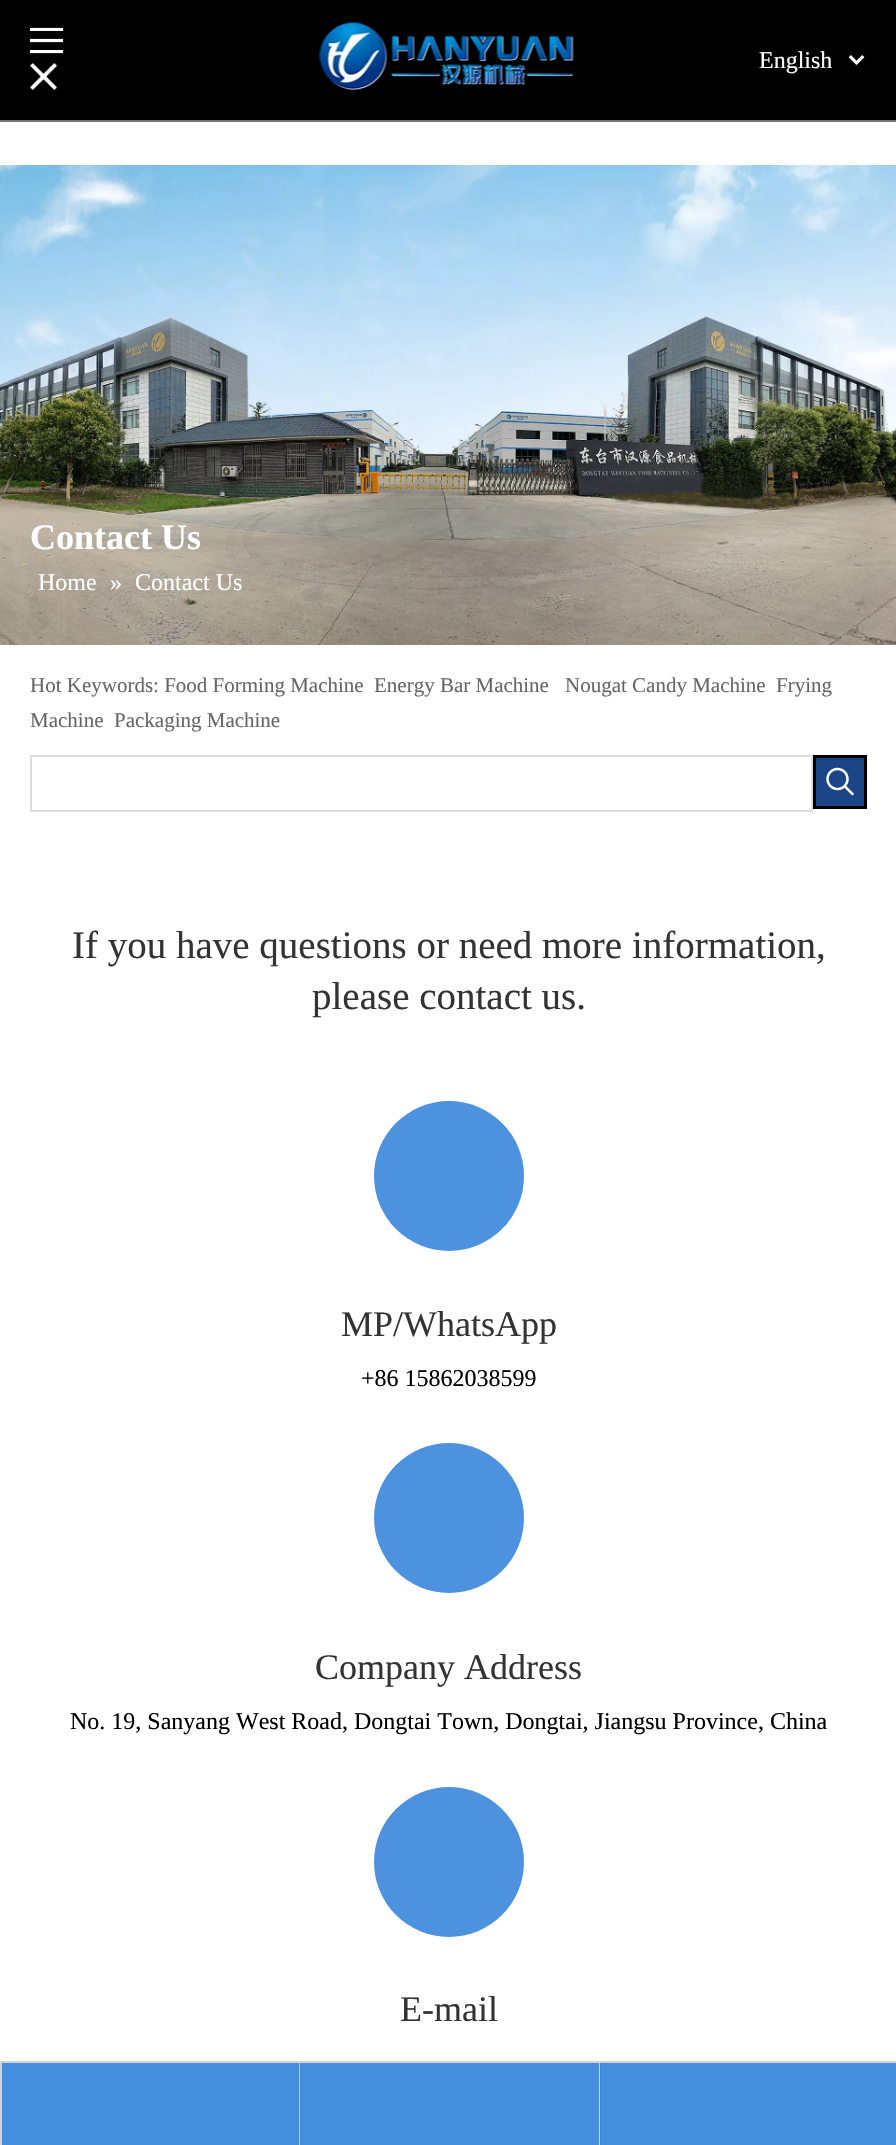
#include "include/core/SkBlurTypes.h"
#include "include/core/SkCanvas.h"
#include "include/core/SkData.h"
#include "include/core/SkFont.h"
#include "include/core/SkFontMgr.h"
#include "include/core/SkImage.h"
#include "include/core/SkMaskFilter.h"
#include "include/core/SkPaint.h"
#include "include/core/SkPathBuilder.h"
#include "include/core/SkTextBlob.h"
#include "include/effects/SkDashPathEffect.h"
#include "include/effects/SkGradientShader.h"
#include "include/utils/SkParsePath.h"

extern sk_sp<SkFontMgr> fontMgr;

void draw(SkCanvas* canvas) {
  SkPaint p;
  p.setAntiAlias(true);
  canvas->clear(SK_ColorWHITE);
  p.setColor(SkColorSetRGB(69, 142, 222));
  canvas->drawRect(SkRect::MakeLTRB(601, 2063, 896, 2145), p);
  p.setColor(SK_ColorBLACK);
  canvas->drawRect(SkRect::MakeLTRB(0, 0, 896, 120), p);
  p.setColor(SkColorSetRGB(115, 115, 115));
  canvas->drawRect(SkRect::MakeLTRB(0, 120, 896, 122), p);
  canvas->drawImageRect(SkImages::DeferredFromEncodedData(SkData::MakeFromFileName("images/1.png")), SkRect::MakeLTRB(318, 22, 574, 90), SkSamplingOptions());
  canvas->drawImageRect(SkImages::DeferredFromEncodedData(SkData::MakeFromFileName("images/2.png")), SkRect::MakeLTRB(30, 27, 63, 54), SkSamplingOptions());
  canvas->drawImageRect(SkImages::DeferredFromEncodedData(SkData::MakeFromFileName("images/3.png")), SkRect::MakeLTRB(30, 63, 57, 90), SkSamplingOptions());
  canvas->drawImageRect(SkImages::DeferredFromEncodedData(SkData::MakeFromFileName("images/4.png")), SkRect::MakeLTRB(848, 55, 865, 65), SkSamplingOptions());
  canvas->drawImageRect(SkImages::DeferredFromEncodedData(SkData::MakeFromFileName("images/5.png")), SkRect::MakeLTRB(0, 165, 896, 645), SkSamplingOptions());
  p.setStyle(SkPaint::kStroke_Style);
  p.setStrokeWidth(2);
  p.setColor(SkColorSetRGB(221, 221, 221));
  canvas->drawRect(SkRect::MakeLTRB(31, 756, 812, 811), p);
  p.setStyle(SkPaint::kFill_Style);
  p.setColor(SkColorSetRGB(28, 69, 135));
  canvas->drawRect(SkRect::MakeLTRB(814.5f, 756.5f, 865.5f, 807.5f), p);
  p.setStyle(SkPaint::kStroke_Style);
  p.setStrokeWidth(3);
  p.setColor(SK_ColorBLACK);
  canvas->drawRect(SkRect::MakeLTRB(814.5f, 756.5f, 865.5f, 807.5f), p);
  canvas->drawImageRect(SkImages::DeferredFromEncodedData(SkData::MakeFromFileName("images/6.png")), SkRect::MakeLTRB(826, 767, 854, 796), SkSamplingOptions());
  p.setStyle(SkPaint::kFill_Style);
  p.setColor(SkColorSetRGB(76, 146, 223));
  canvas->drawCircle(449, 1176, 75, p);
  canvas->drawCircle(449, 1518, 75, p);
  canvas->drawCircle(449, 1862, 75, p);
  p.setColor(SkColorSetRGB(211, 211, 211));
  canvas->drawRect(SkRect::MakeLTRB(0, 2061, 896, 2063), p);
  canvas->drawRect(SkRect::MakeLTRB(0, 2063, 2, 2145), p);
  p.setColor(SkColorSetRGB(69, 142, 222));
  canvas->drawRect(SkRect::MakeLTRB(2, 2063, 299, 2145), p);
  p.setColor(SkColorSetRGB(211, 211, 211));
  canvas->drawRect(SkRect::MakeLTRB(299, 2063, 301, 2145), p);
  p.setColor(SkColorSetARGB(212, 31, 119, 215));
  canvas->drawRect(SkRect::MakeLTRB(300, 2063, 599, 2145), p);
  p.setColor(SkColorSetRGB(211, 211, 211));
  canvas->drawRect(SkRect::MakeLTRB(599, 2063, 600, 2145), p);
  p.setColor(SkColorSetRGB(62, 135, 214));
  canvas->drawRect(SkRect::MakeLTRB(600, 2063, 601, 2145), p);
  SkFont font1(fontMgr->matchFamilyStyle("Liberation Serif", SkFontStyle::Normal()), 24);
  font1.setSubpixel(true);
  p.setColor(SK_ColorWHITE);
  canvas->drawString("English", 759, 68, font1, p);
  SkFont font2(fontMgr->matchFamilyStyle("Liberation Serif", SkFontStyle::Bold()), 36);
  font2.setSubpixel(true);
  canvas->drawString("Contact Us", 30, 549, font2, p);
  canvas->drawString("Home", 38, 590, font1, p);
  canvas->drawString("»", 110, 590, font1, p);
  canvas->drawString("Contact Us", 135, 590, font1, p);
  SkFont font3(fontMgr->matchFamilyStyle("Liberation Serif", SkFontStyle::Normal()), 21);
  font3.setSubpixel(true);
  p.setColor(SkColorSetRGB(102, 102, 102));
  canvas->drawString("Hot Keywords: Food Forming Machine", 30, 692, font3, p);
  canvas->drawString("Energy Bar Machine", 374, 692, font3, p);
  canvas->drawString("Nougat Candy Machine", 565, 692, font3, p);
  canvas->drawString("Frying", 776, 692, font3, p);
  canvas->drawString("Machine", 30, 727, font3, p);
  canvas->drawString("Packaging Machine", 114, 727, font3, p);
  SkFont font4(fontMgr->matchFamilyStyle("Liberation Serif", SkFontStyle::Normal()), 39);
  font4.setSubpixel(true);
  p.setColor(SkColorSetRGB(51, 51, 51));
  canvas->drawString("If you have questions or need more information,", 72, 958, font4, p);
  canvas->drawString("please contact us.", 312, 1009, font4, p);
  SkFont font5(fontMgr->matchFamilyStyle("Liberation Serif", SkFontStyle::Normal()), 36);
  font5.setSubpixel(true);
  canvas->drawString("MP/WhatsApp", 341, 1336, font5, p);
  p.setColor(SK_ColorBLACK);
  canvas->drawString("+86 15862038599", 361, 1386, font1, p);
  p.setColor(SkColorSetRGB(51, 51, 51));
  canvas->drawString("Company Address", 315, 1679, font5, p);
  p.setColor(SK_ColorBLACK);
  canvas->drawString("No. 19, Sanyang West Road, Dongtai Town, Dongtai, Jiangsu Province, China", 70, 1729, font1, p);
  p.setColor(SkColorSetRGB(51, 51, 51));
  canvas->drawString("E-mail", 400, 2021, font5, p);
}
